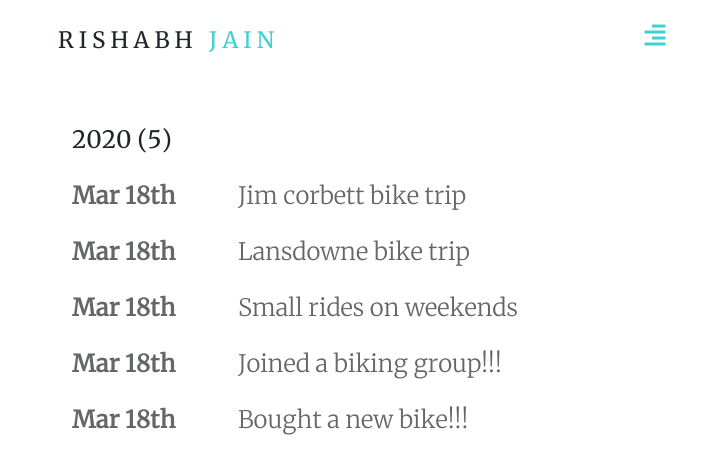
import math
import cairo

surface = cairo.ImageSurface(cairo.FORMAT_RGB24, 719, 472)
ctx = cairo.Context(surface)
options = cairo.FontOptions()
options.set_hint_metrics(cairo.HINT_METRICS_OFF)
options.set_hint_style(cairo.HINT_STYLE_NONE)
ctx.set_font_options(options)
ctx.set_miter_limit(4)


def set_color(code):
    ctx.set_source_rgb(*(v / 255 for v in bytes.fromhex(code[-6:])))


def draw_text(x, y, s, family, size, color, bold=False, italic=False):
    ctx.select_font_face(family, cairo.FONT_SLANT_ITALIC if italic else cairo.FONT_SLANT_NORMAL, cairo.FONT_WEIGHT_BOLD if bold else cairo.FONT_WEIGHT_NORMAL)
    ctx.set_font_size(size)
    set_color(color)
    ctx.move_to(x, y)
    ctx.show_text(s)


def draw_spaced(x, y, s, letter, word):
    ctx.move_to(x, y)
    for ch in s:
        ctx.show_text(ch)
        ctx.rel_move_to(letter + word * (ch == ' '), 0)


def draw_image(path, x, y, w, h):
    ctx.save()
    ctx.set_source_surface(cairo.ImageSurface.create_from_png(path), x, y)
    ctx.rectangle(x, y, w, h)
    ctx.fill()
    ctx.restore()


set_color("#ffffff")
ctx.paint()
ctx.select_font_face("Merriweather")
ctx.set_font_size(22.5)
set_color("#212529")
draw_spaced(58, 48, "RISHABH", 5, 0)
set_color("#3fd0d4")
draw_spaced(209, 48, "JAIN", 5, 0)
draw_image("assets/img1.png", 644, 24, 22, 22)
draw_text(72, 148, "2020 (5)", "Merriweather", 24, "#212529")
draw_text(72, 204, "Mar 18th", "Merriweather", 24, "#646669", bold=True)
draw_text(238, 204, "Jim corbett bike trip", "Merriweather Light", 24, "#646669")
draw_text(72, 260, "Mar 18th", "Merriweather", 24, "#646669", bold=True)
draw_text(238, 260, "Lansdowne bike trip", "Merriweather Light", 24, "#646669")
draw_text(72, 316, "Mar 18th", "Merriweather", 24, "#646669", bold=True)
draw_text(238, 316, "Small rides on weekends", "Merriweather Light", 24, "#646669")
draw_text(72, 372, "Mar 18th", "Merriweather", 24, "#646669", bold=True)
draw_text(238, 372, "Joined a biking group!!!", "Merriweather Light", 24, "#646669")
draw_text(72, 428, "Mar 18th", "Merriweather", 24, "#646669", bold=True)
draw_text(238, 428, "Bought a new bike!!!", "Merriweather Light", 24, "#646669")
surface.write_to_png("output.png")
